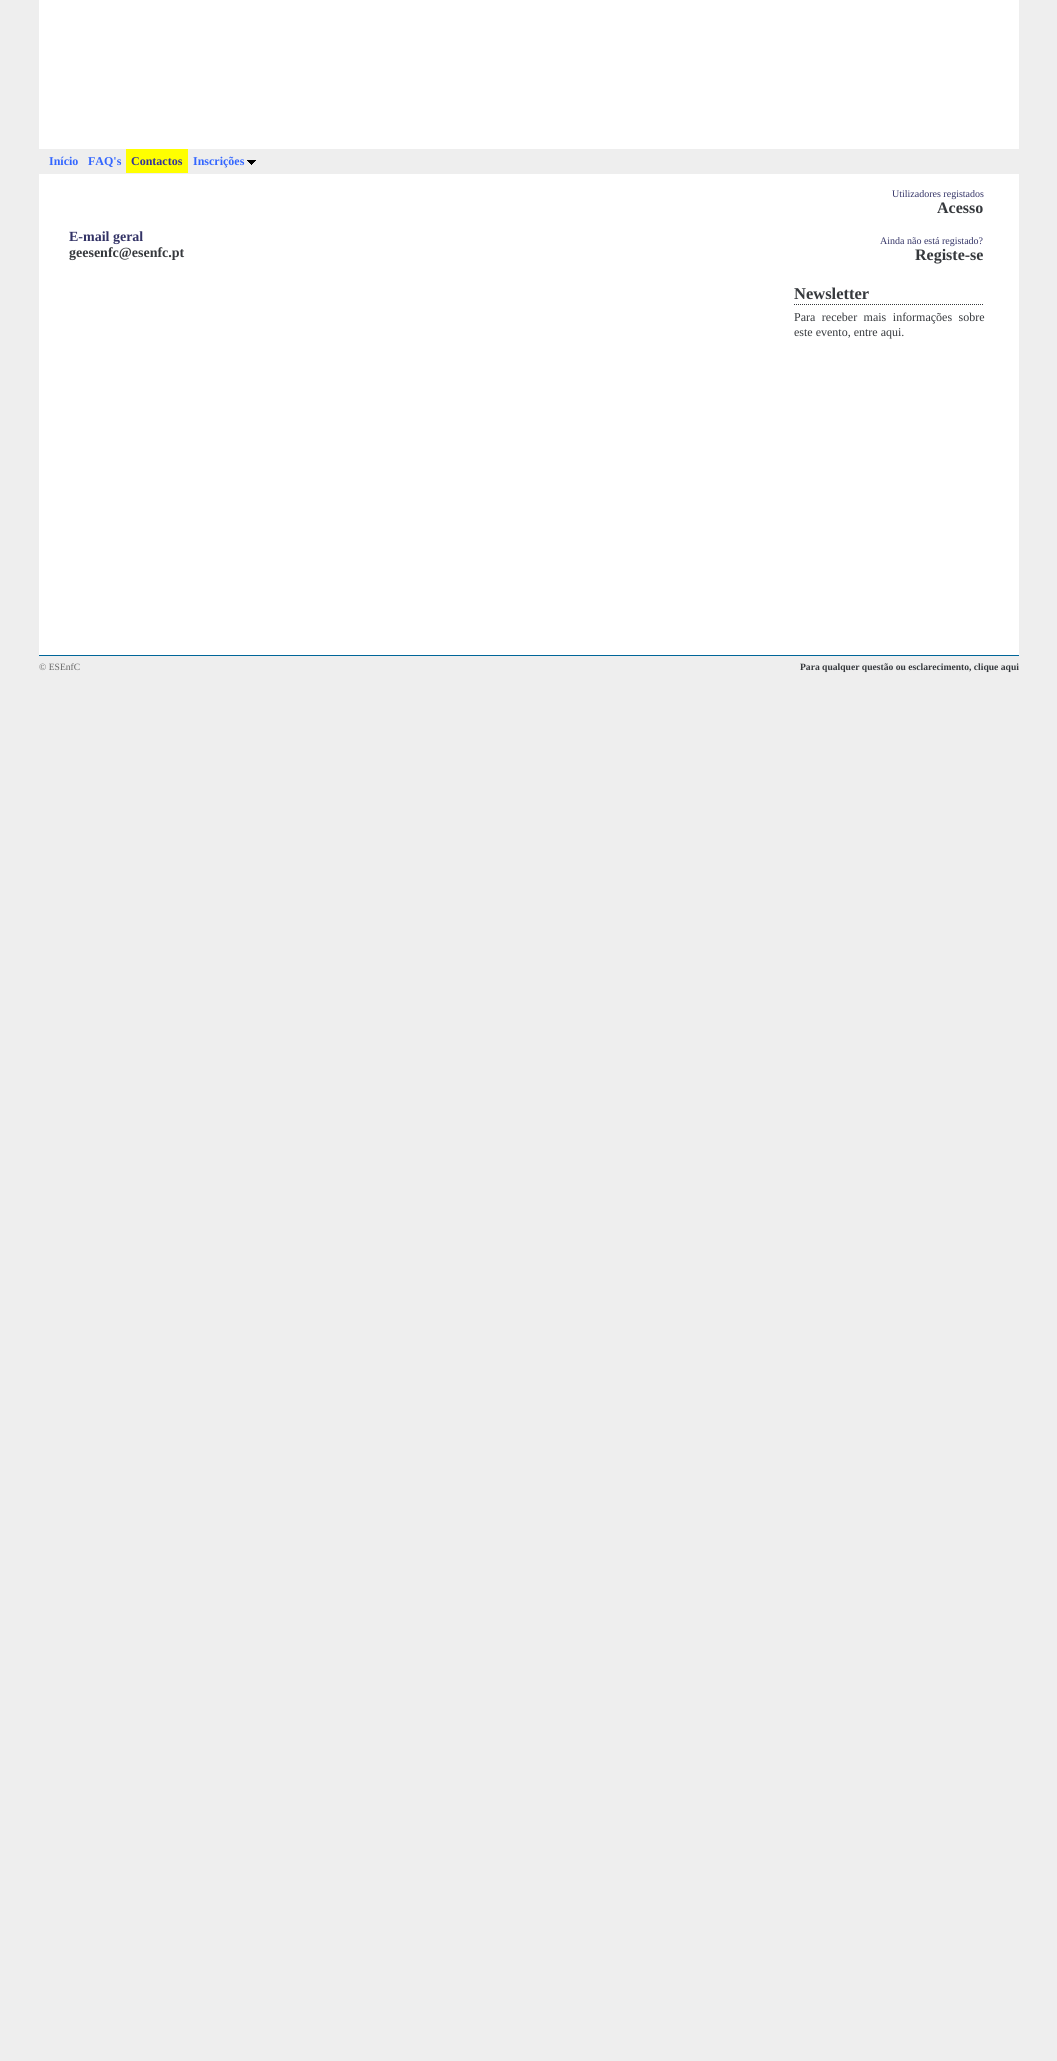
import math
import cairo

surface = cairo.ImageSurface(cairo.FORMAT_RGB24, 1057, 2061)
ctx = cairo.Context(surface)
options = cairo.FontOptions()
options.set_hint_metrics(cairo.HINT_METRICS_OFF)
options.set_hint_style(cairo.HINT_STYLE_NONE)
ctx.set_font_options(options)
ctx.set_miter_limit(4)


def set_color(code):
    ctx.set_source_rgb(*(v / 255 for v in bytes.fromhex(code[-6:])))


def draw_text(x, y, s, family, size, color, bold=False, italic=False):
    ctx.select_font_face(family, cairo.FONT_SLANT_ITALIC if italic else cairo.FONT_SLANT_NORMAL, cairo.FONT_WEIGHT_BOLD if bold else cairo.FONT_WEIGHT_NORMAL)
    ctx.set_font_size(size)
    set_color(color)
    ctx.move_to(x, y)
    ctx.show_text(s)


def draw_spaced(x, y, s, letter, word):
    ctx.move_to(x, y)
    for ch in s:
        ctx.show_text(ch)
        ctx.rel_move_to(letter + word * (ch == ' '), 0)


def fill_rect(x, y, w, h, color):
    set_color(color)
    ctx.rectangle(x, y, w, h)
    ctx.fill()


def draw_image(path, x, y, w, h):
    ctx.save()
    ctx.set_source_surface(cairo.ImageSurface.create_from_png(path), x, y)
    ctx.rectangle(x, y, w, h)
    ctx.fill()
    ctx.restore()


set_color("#eeeeee")
ctx.paint()
fill_rect(39, 0, 980, 149, "#ffffff")
draw_text(49, 165, "Início", "Liberation Serif", 12, "#3366ff", bold=True)
draw_text(88, 165, "FAQ's", "Liberation Serif", 12, "#3366ff", bold=True)
fill_rect(126, 149, 62, 24, "#ffff00")
draw_text(131, 165, "Contactos", "Liberation Serif", 12, "#333399", bold=True)
draw_text(193, 165, "Inscrições", "Liberation Serif", 12, "#3366ff", bold=True)
draw_image("assets/img1.png", 247, 160, 9, 5)
fill_rect(39, 174, 980, 481, "#ffffff")
draw_text(69, 241, "E-mail geral", "Liberation Serif", 14, "#333366", bold=True)
draw_text(69, 257, "geesenfc@esenfc.pt", "Liberation Serif", 14, "#36393d", bold=True)
draw_text(892, 197, "Utilizadores registados", "Liberation Serif", 10, "#333366")
draw_text(937, 213, "Acesso", "Liberation Serif", 16, "#36393d", bold=True)
draw_text(880, 244, "Ainda não está registado?", "Liberation Serif", 10, "#333366")
draw_text(915, 260, "Registe-se", "Liberation Serif", 16, "#36393d", bold=True)
ctx.new_path()
ctx.move_to(794, 304.5)
ctx.line_to(984, 304.5)
ctx.set_line_width(1)
ctx.set_dash([1, 1])
ctx.stroke()
draw_text(794, 299, "Newsletter", "Liberation Serif", 16.5, "#36393d", bold=True)
ctx.select_font_face("Liberation Serif")
ctx.set_font_size(12)
draw_spaced(794, 321, "Para receber mais informações sobre", 0, 3.5)
draw_text(794, 336, "este evento, entre aqui.", "Liberation Serif", 12, "#36393d")
fill_rect(39, 655, 980, 1, "#006699")
draw_text(39, 670, "© ESEnfC", "Liberation Serif", 9.6, "#666666")
draw_text(800, 670, "Para qualquer questão ou esclarecimento, clique aqui", "Liberation Serif", 9.6, "#36393d", bold=True)
surface.write_to_png("output.png")
